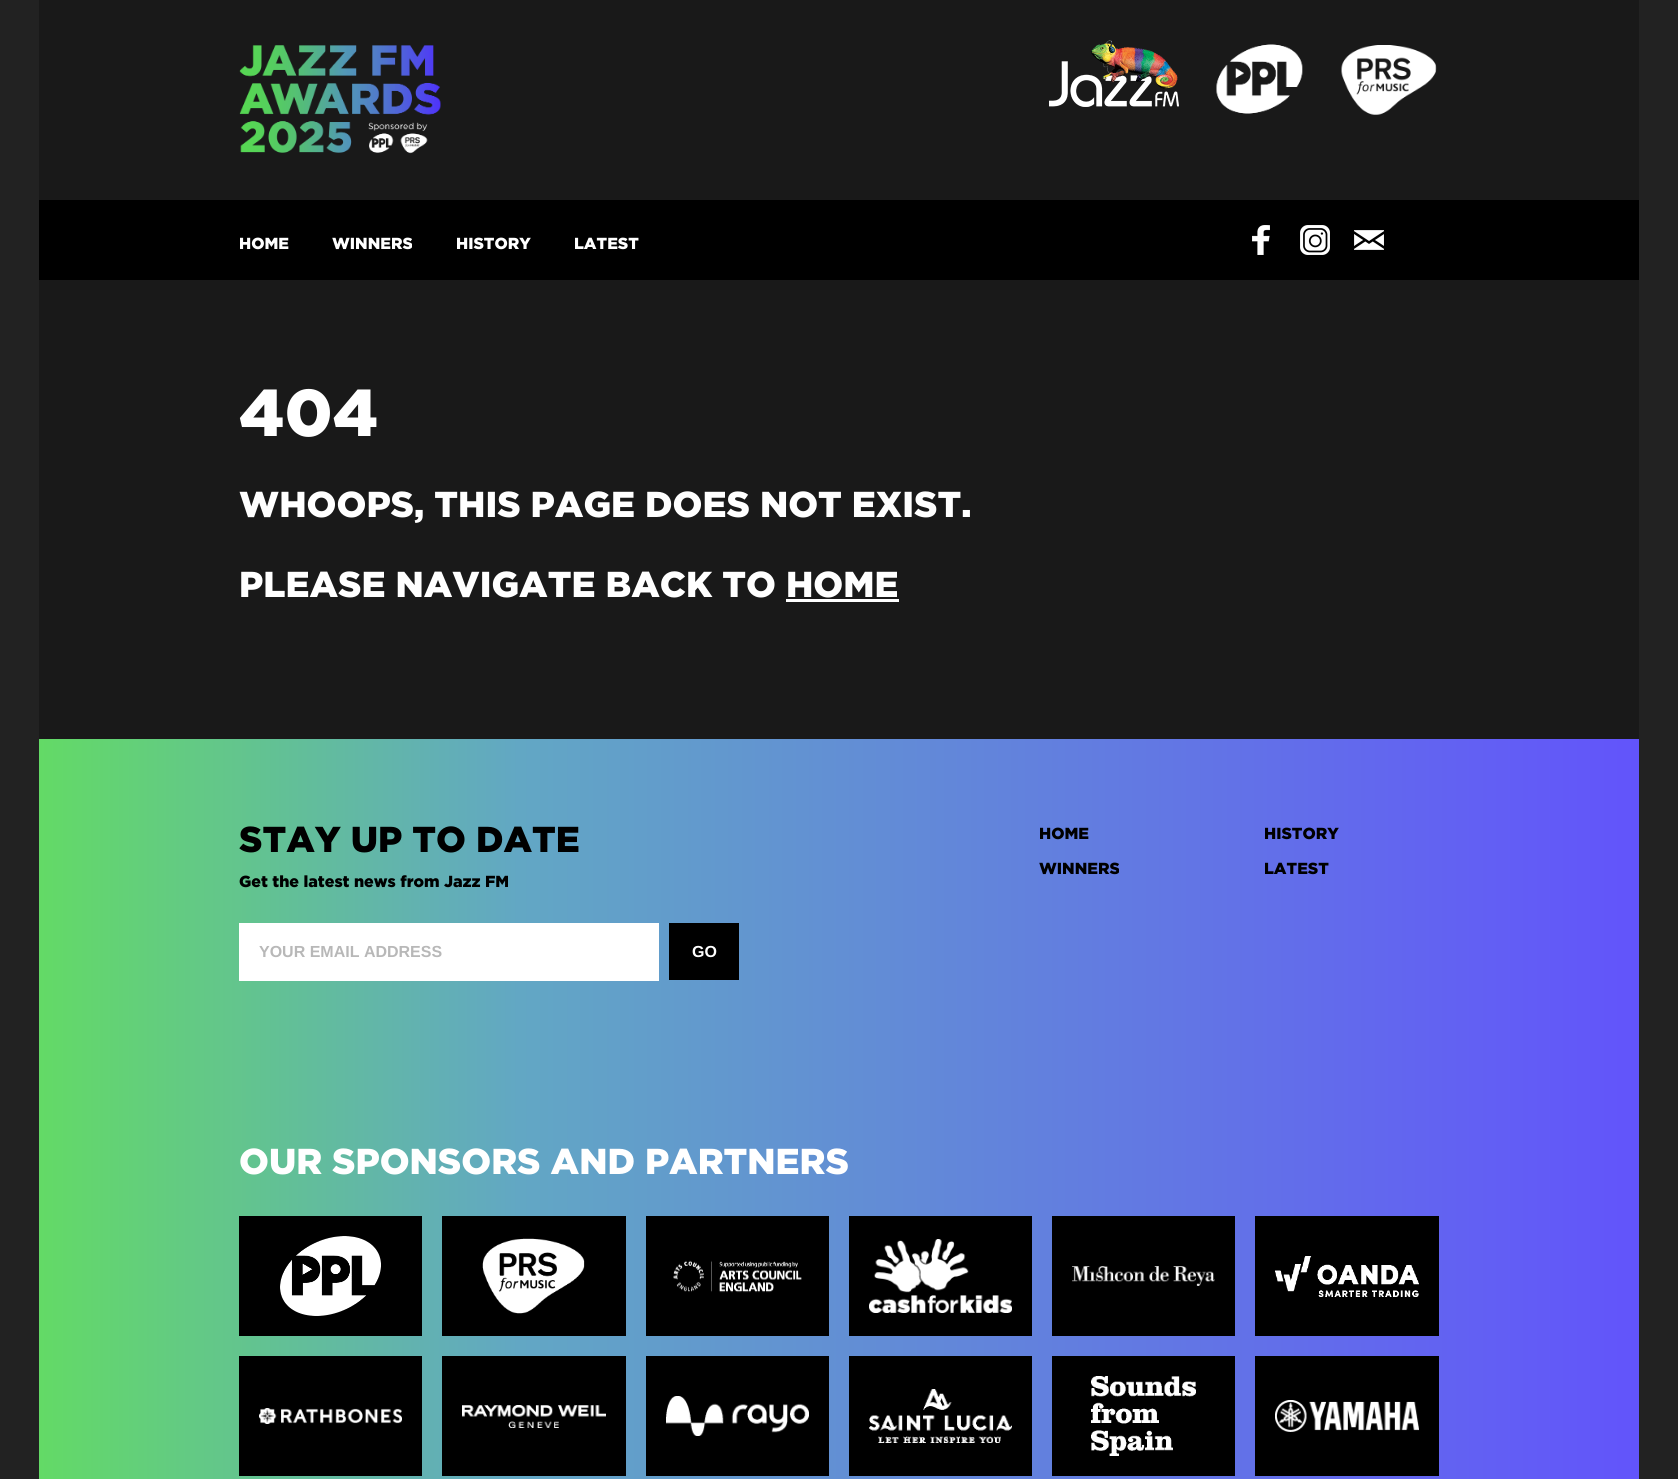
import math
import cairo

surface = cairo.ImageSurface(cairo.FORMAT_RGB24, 1678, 1479)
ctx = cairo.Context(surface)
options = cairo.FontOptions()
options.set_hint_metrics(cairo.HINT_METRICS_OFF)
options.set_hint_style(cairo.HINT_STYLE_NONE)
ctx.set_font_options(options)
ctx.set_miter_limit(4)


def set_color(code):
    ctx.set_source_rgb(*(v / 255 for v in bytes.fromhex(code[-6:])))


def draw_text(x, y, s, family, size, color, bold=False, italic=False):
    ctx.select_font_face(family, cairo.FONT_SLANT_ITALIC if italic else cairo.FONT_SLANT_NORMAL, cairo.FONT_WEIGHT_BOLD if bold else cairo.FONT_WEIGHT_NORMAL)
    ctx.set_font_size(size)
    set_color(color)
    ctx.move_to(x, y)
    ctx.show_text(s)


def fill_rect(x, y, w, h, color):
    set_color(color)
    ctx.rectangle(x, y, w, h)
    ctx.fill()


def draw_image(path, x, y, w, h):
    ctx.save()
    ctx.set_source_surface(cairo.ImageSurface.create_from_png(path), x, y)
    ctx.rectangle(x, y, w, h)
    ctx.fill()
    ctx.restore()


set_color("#222222")
ctx.paint()
fill_rect(39, 0, 1600, 200, "#191919")
draw_image("assets/img1.png", 239, 45, 202, 109)
draw_image("assets/img2.png", 1049, 40, 130, 67)
draw_image("assets/img3.png", 1216, 44, 87, 70)
draw_image("assets/img4.png", 1341, 45, 96, 70)
fill_rect(39, 200, 1600, 80, "#000000")
draw_text(239, 249, "HOME", "Gotham Black", 16, "#ffffff")
draw_text(332, 249, "WINNERS", "Gotham Black", 16, "#ffffff")
draw_text(456, 249, "HISTORY", "Gotham Black", 16, "#ffffff")
draw_text(574, 249, "LATEST", "Gotham Black", 16, "#ffffff")
draw_image("assets/img5.png", 1252, 225, 18, 30)
draw_image("assets/img6.png", 1300, 225, 30, 30)
draw_image("assets/img7.png", 1354, 230, 30, 20)
fill_rect(39, 280, 1600, 459, "#191919")
draw_text(239, 436, "404", "Gotham Black", 66, "#ffffff")
draw_text(239, 517, "WHOOPS, THIS PAGE DOES NOT EXIST.", "Gotham Black", 36, "#ffffff")
draw_text(239, 597, "PLEASE NAVIGATE BACK TO HOME", "Gotham Black", 36, "#ffffff")
fill_rect(786, 599, 113, 3, "#ffffff")
gradient = cairo.LinearGradient(39, 900, 1639, 900)
gradient.add_color_stop_rgba(0, 0.388, 0.855, 0.4, 1)
gradient.add_color_stop_rgba(0.3, 0.384, 0.655, 0.769, 1)
gradient.add_color_stop_rgba(1, 0.384, 0.329, 0.984, 1)
gradient.add_color_stop_rgba(1, 0.388, 0.855, 0.4, 1)
gradient.add_color_stop_rgba(1, 0.384, 0.655, 0.769, 1)
gradient.add_color_stop_rgba(1, 0.384, 0.329, 0.984, 1)
ctx.set_source(gradient)
ctx.rectangle(39, 739, 1600, 322)
ctx.fill()
draw_text(239, 852, "STAY UP TO DATE", "Gotham Black", 36, "#000000")
draw_text(239, 887, "Get the latest news from Jazz FM", "Gotham Black", 16, "#000000")
fill_rect(239, 923, 420, 58, "#ffffff")
draw_text(259, 957, "YOUR EMAIL ADDRESS", "Liberation Sans", 16, "#b8b8b8", bold=True)
fill_rect(669, 923, 70, 57, "#000000")
draw_text(692, 957, "GO", "Liberation Sans", 16, "#ffffff", bold=True)
draw_text(1039, 839, "HOME", "Gotham Black", 16, "#000000")
draw_text(1264, 839, "HISTORY", "Gotham Black", 16, "#000000")
draw_text(1039, 874, "WINNERS", "Gotham Black", 16, "#000000")
draw_text(1264, 874, "LATEST", "Gotham Black", 16, "#000000")
gradient = cairo.LinearGradient(39, 1389, 1639, 1389)
gradient.add_color_stop_rgba(0, 0.388, 0.855, 0.4, 1)
gradient.add_color_stop_rgba(0.3, 0.384, 0.655, 0.769, 1)
gradient.add_color_stop_rgba(1, 0.384, 0.329, 0.984, 1)
gradient.add_color_stop_rgba(1, 0.388, 0.855, 0.4, 1)
gradient.add_color_stop_rgba(1, 0.384, 0.655, 0.769, 1)
gradient.add_color_stop_rgba(1, 0.384, 0.329, 0.984, 1)
ctx.set_source(gradient)
ctx.rectangle(39, 1061, 1600, 418)
ctx.fill()
draw_text(239, 1174, "OUR SPONSORS AND PARTNERS", "Gotham Black", 36, "#ffffff")
fill_rect(239, 1216, 183, 120, "#000000")
draw_image("assets/img8.png", 280, 1236, 101, 80)
fill_rect(442, 1216, 184, 120, "#000000")
draw_image("assets/img9.png", 482, 1238, 103, 76)
fill_rect(646, 1216, 183, 120, "#000000")
draw_image("assets/img10.png", 673, 1260, 129, 33)
fill_rect(849, 1216, 183, 120, "#000000")
draw_image("assets/img11.png", 869, 1239, 143, 74)
fill_rect(1052, 1216, 183, 120, "#000000")
draw_image("assets/img12.png", 1072, 1266, 143, 20)
fill_rect(1255, 1216, 184, 120, "#000000")
draw_image("assets/img13.png", 1275, 1256, 144, 41)
fill_rect(239, 1356, 183, 120, "#000000")
draw_image("assets/img14.png", 259, 1408, 143, 16)
fill_rect(442, 1356, 184, 120, "#000000")
draw_image("assets/img15.png", 462, 1405, 144, 23)
fill_rect(646, 1356, 183, 120, "#000000")
draw_image("assets/img16.png", 666, 1396, 143, 40)
fill_rect(849, 1356, 183, 120, "#000000")
draw_image("assets/img17.png", 869, 1389, 143, 54)
fill_rect(1052, 1356, 183, 120, "#000000")
draw_image("assets/img18.png", 1091, 1376, 105, 80)
fill_rect(1255, 1356, 184, 120, "#000000")
draw_image("assets/img19.png", 1275, 1400, 144, 32)
surface.write_to_png("output.png")
